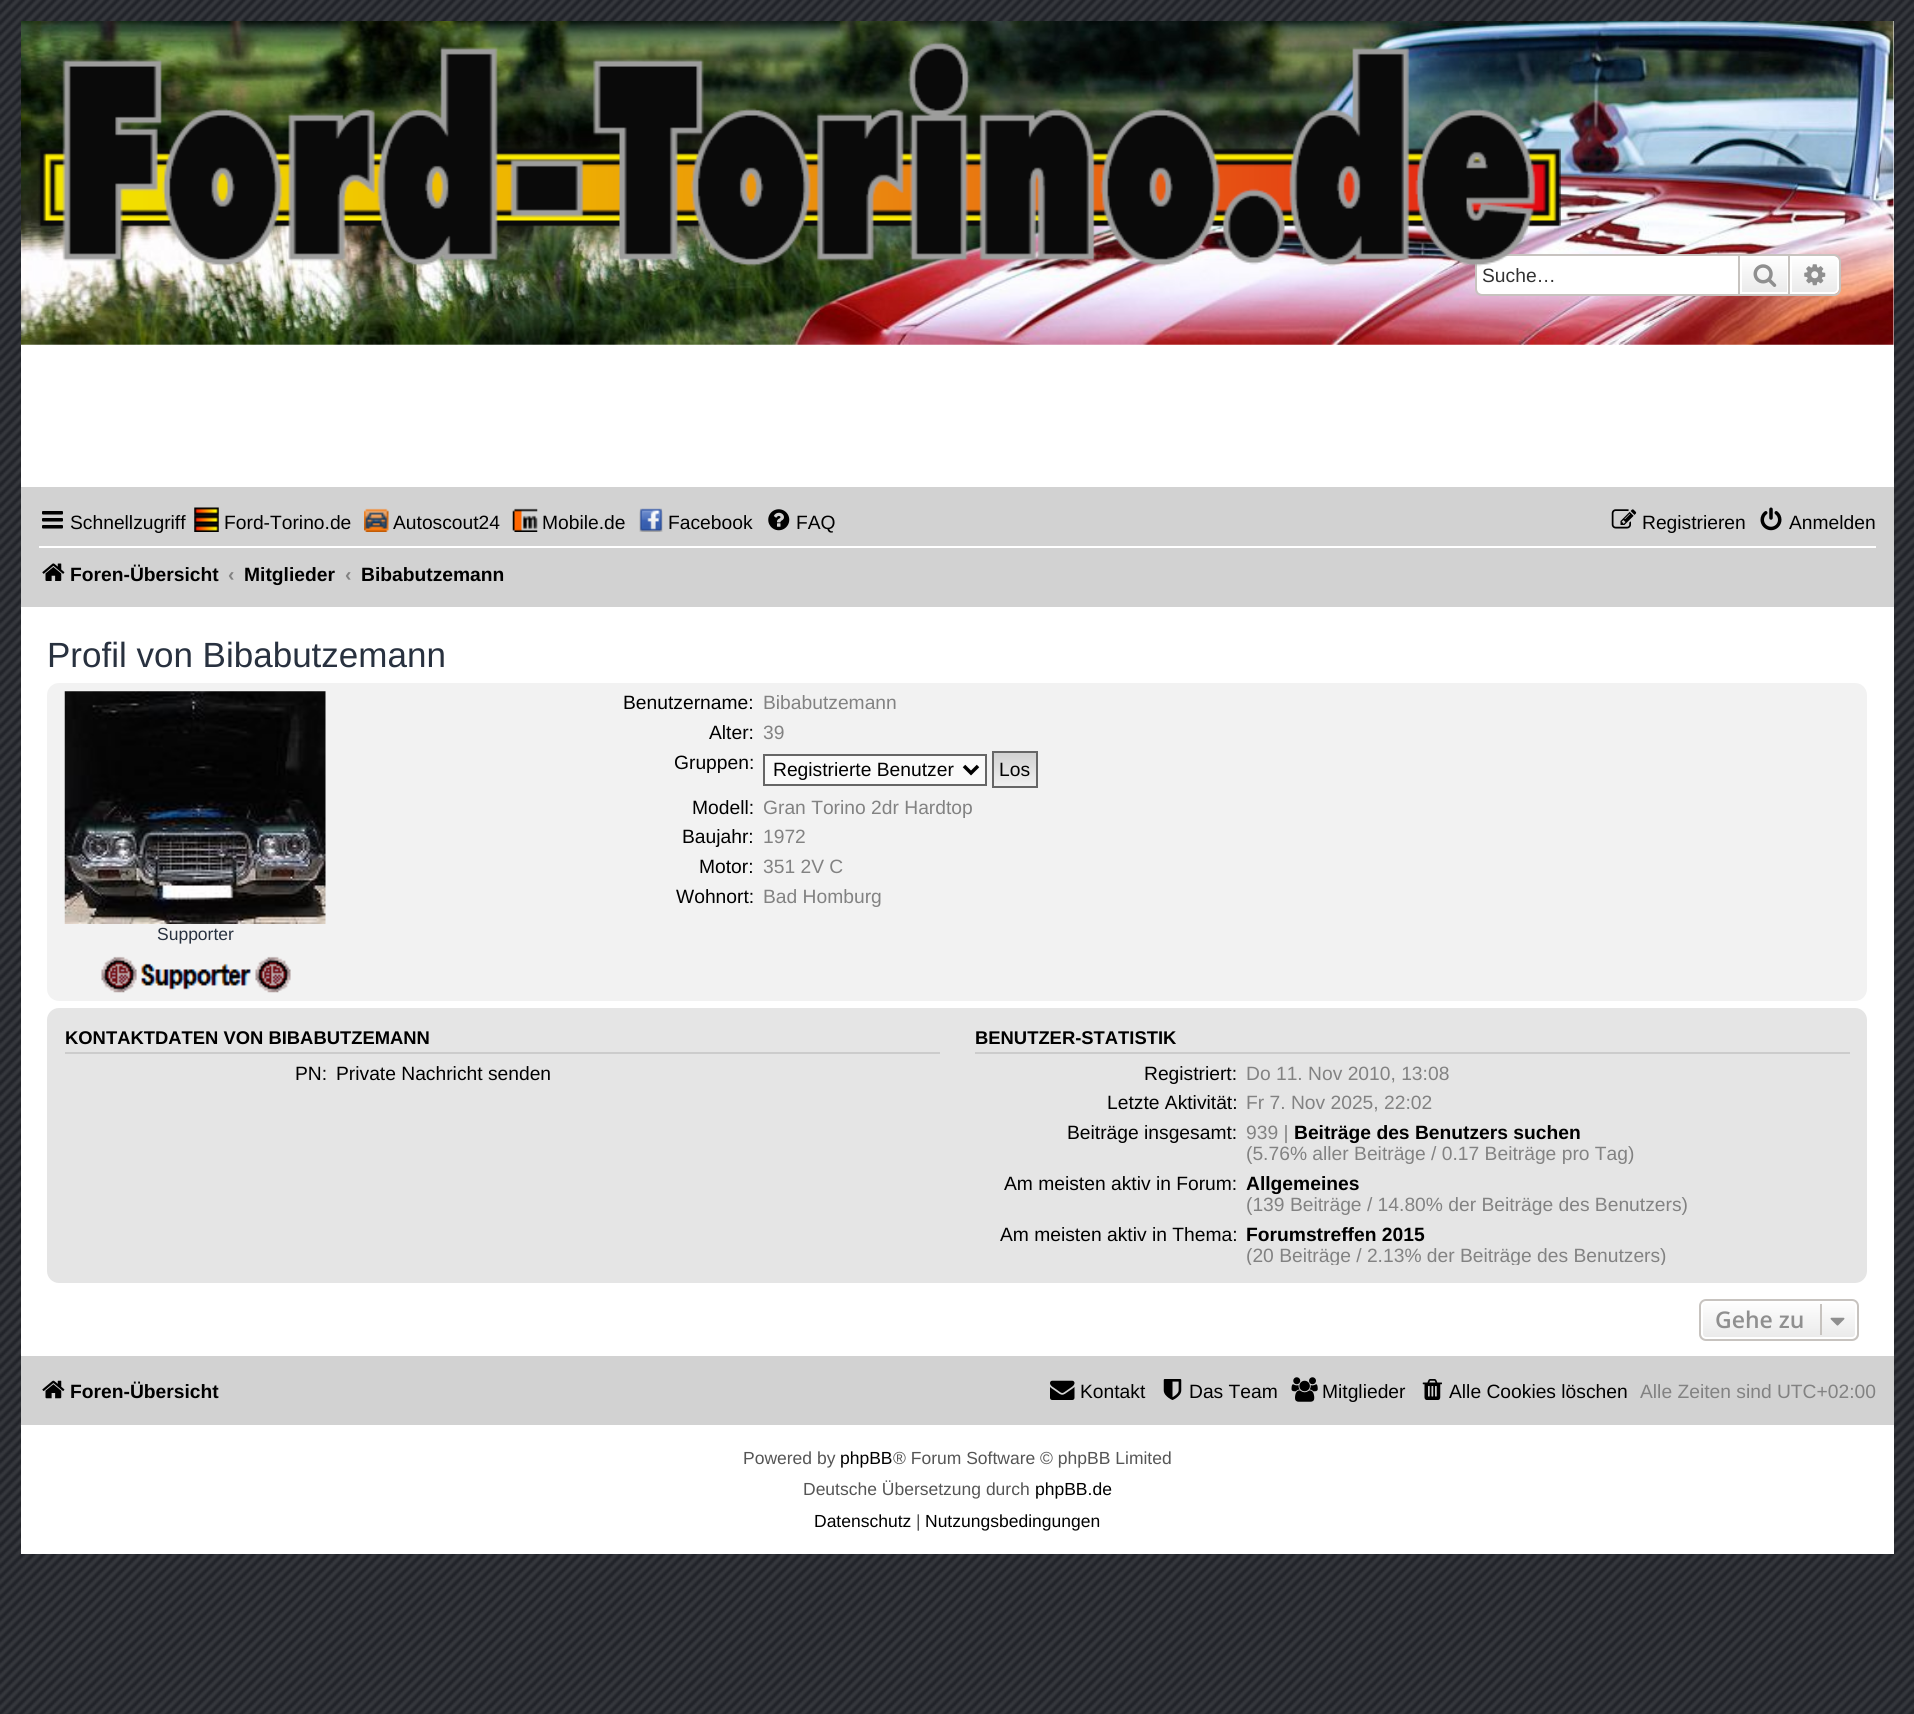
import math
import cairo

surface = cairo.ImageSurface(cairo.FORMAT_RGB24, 1914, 1714)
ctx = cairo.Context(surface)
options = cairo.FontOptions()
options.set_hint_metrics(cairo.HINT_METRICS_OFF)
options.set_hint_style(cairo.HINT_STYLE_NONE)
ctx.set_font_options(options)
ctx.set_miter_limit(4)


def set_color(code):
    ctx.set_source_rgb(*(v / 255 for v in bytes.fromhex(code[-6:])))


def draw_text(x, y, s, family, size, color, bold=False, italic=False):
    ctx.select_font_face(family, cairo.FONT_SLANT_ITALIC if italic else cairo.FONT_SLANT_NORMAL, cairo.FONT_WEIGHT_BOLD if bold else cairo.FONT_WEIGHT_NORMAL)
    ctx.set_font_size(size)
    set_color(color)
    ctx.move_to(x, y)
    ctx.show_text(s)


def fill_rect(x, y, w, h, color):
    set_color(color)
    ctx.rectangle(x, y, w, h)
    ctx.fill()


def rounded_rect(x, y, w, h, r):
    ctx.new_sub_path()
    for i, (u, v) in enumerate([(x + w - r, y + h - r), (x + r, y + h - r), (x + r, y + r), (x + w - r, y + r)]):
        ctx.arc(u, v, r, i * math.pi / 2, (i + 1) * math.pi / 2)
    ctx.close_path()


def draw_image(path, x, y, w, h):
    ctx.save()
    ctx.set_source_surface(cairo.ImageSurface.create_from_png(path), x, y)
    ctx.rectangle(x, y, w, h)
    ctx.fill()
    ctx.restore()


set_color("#ffffff")
ctx.paint()
draw_image("assets/img1.png", 0, 1575, 1914, 139)
draw_image("assets/img2.png", 0, 0, 1914, 1575)
fill_rect(21, 21, 1873, 1533, "#ffffff")
draw_image("assets/img3.png", 21, 21, 1873, 324)
ctx.new_path()
ctx.move_to(1482, 256)
ctx.line_to(1738, 256)
ctx.line_to(1738, 294)
ctx.line_to(1482, 294)
ctx.curve_to(1479, 294, 1477, 292, 1477, 289)
ctx.line_to(1477, 261)
ctx.curve_to(1477, 258, 1479, 256, 1482, 256)
ctx.close_path()
ctx.fill()
set_color("#c7c3bf")
ctx.set_fill_rule(cairo.FILL_RULE_EVEN_ODD)
ctx.new_path()
ctx.move_to(1482, 254)
ctx.line_to(1738, 254)
ctx.line_to(1738, 296)
ctx.line_to(1482, 296)
ctx.curve_to(1478, 296, 1475, 293, 1475, 289)
ctx.line_to(1475, 261)
ctx.curve_to(1475, 257, 1478, 254, 1482, 254)
ctx.close_path()
ctx.move_to(1482, 256)
ctx.line_to(1738, 256)
ctx.line_to(1738, 294)
ctx.line_to(1482, 294)
ctx.curve_to(1479, 294, 1477, 292, 1477, 289)
ctx.line_to(1477, 261)
ctx.curve_to(1477, 258, 1479, 256, 1482, 256)
ctx.close_path()
ctx.fill()
draw_image("assets/img4.png", 38, 41, 1523, 226)
draw_text(1482, 282, "Suche…", "Liberation Sans", 19.25, "#333333")
gradient = cairo.LinearGradient(1764, 256, 1764, 294)
gradient.add_color_stop_rgba(0, 1, 1, 1, 1)
gradient.add_color_stop_rgba(1, 0.914, 0.914, 0.914, 1)
ctx.set_source(gradient)
ctx.rectangle(1742, 258, 45, 34)
ctx.fill()
ctx.rectangle(1741, 257, 47, 36)
set_color("#ffffff")
ctx.stroke()
ctx.rectangle(1739, 255, 50, 40)
set_color("#c7c3bf")
ctx.stroke()
draw_image("assets/img5.png", 1753, 264, 24, 23)
gradient = cairo.LinearGradient(1815, 256, 1815, 294)
gradient.add_color_stop_rgba(0, 1, 1, 1, 1)
gradient.add_color_stop_rgba(1, 0.914, 0.914, 0.914, 1)
ctx.set_source(gradient)
ctx.new_path()
ctx.move_to(1791, 257)
ctx.line_to(1834, 257)
ctx.curve_to(1836, 257, 1838, 259, 1838, 261)
ctx.line_to(1838, 289)
ctx.curve_to(1838, 291, 1836, 293, 1834, 293)
ctx.line_to(1791, 293)
ctx.close_path()
ctx.fill_preserve()
set_color("#ffffff")
ctx.stroke()
set_color("#c7c3bf")
ctx.new_path()
ctx.move_to(1790, 254)
ctx.line_to(1834, 254)
ctx.curve_to(1838, 254, 1841, 257, 1841, 261)
ctx.line_to(1841, 289)
ctx.curve_to(1841, 293, 1838, 296, 1834, 296)
ctx.line_to(1790, 296)
ctx.close_path()
ctx.move_to(1790, 256)
ctx.line_to(1834, 256)
ctx.curve_to(1837, 256, 1839, 258, 1839, 261)
ctx.line_to(1839, 289)
ctx.curve_to(1839, 292, 1837, 294, 1834, 294)
ctx.line_to(1790, 294)
ctx.close_path()
ctx.fill()
draw_image("assets/img6.png", 1804, 264, 22, 22)
fill_rect(21, 487, 1873, 120, "#d2d2d2")
draw_image("assets/img7.png", 42, 511, 21, 18)
draw_text(70, 529, "Schnellzugriff", "Liberation Sans", 19.25, "#000000")
draw_image("assets/img8.png", 194, 507, 25, 25)
draw_text(224, 529, "Ford-Torino.de", "Liberation Sans", 19.25, "#000000")
draw_image("assets/img9.png", 364, 508, 25, 24)
draw_text(393, 529, "Autoscout24", "Liberation Sans", 19.25, "#000000")
draw_image("assets/img10.png", 512, 508, 26, 24)
draw_text(542, 529, "Mobile.de", "Liberation Sans", 19.25, "#000000")
draw_image("assets/img11.png", 639, 508, 24, 24)
draw_text(668, 529, "Facebook", "Liberation Sans", 19.25, "#000000")
draw_image("assets/img12.png", 768, 509, 22, 22)
draw_text(796, 529, "FAQ", "Liberation Sans", 19.25, "#000000")
draw_image("assets/img13.png", 1611, 509, 26, 20)
draw_text(1642, 529, "Registrieren", "Liberation Sans", 19.25, "#000000")
draw_image("assets/img14.png", 1760, 507, 22, 24)
draw_text(1789, 529, "Anmelden", "Liberation Sans", 19.25, "#000000")
fill_rect(39, 546, 1837, 2, "#ffffff")
draw_image("assets/img15.png", 42, 563, 23, 18)
draw_text(70, 581, "Foren-Übersicht", "Liberation Sans", 19.25, "#000000", bold=True)
draw_text(228, 581, "‹", "Liberation Sans", 19.25, "#828282", bold=True)
draw_text(244, 581, "Mitglieder", "Liberation Sans", 19.25, "#000000", bold=True)
draw_text(345, 581, "‹", "Liberation Sans", 19.25, "#828282", bold=True)
draw_text(361, 581, "Bibabutzemann", "Liberation Sans", 19.25, "#000000", bold=True)
draw_text(47, 667, "Profil von Bibabutzemann", "Liberation Sans", 35, "#28313f")
set_color("#f2f2f2")
rounded_rect(47, 683, 1820, 318, 12)
ctx.fill()
draw_text(623, 709, "Benutzername:", "Liberation Sans", 19.25, "#000000")
draw_text(763, 709, "Bibabutzemann", "Liberation Sans", 19.25, "#828282")
draw_text(709, 739, "Alter:", "Liberation Sans", 19.25, "#000000")
draw_text(763, 739, "39", "Liberation Sans", 19.25, "#828282")
draw_text(674, 769, "Gruppen:", "Liberation Sans", 19.25, "#000000")
set_color("#fafafa")
ctx.rectangle(764, 755, 222, 30)
ctx.fill_preserve()
set_color("#666666")
ctx.stroke()
ctx.new_path()
ctx.move_to(964, 766)
ctx.line_to(971, 773)
ctx.line_to(978, 766)
set_color("#000000")
ctx.set_line_width(3.5)
ctx.stroke()
draw_text(773, 776, "Registrierte Benutzer", "Liberation Sans", 19.25, "#000000")
gradient = cairo.LinearGradient(1015, 753, 1015, 786)
gradient.add_color_stop_rgba(0, 0.824, 0.824, 0.824, 1)
gradient.add_color_stop_rgba(1, 0.937, 0.937, 0.937, 1)
ctx.set_source(gradient)
ctx.rectangle(994, 753, 42, 33)
ctx.fill()
ctx.rectangle(993, 752, 44, 35)
set_color("#666666")
ctx.set_line_width(2)
ctx.stroke()
draw_text(999, 776, "Los", "Liberation Sans", 19.25, "#000000")
draw_text(692, 814, "Modell:", "Liberation Sans", 19.25, "#000000")
draw_text(763, 814, "Gran Torino 2dr Hardtop", "Liberation Sans", 19.25, "#828282")
draw_text(682, 843, "Baujahr:", "Liberation Sans", 19.25, "#000000")
draw_text(763, 843, "1972", "Liberation Sans", 19.25, "#828282")
draw_text(699, 873, "Motor:", "Liberation Sans", 19.25, "#000000")
draw_text(763, 873, "351 2V C", "Liberation Sans", 19.25, "#828282")
draw_text(676, 903, "Wohnort:", "Liberation Sans", 19.25, "#000000")
draw_text(763, 903, "Bad Homburg", "Liberation Sans", 19.25, "#828282")
draw_image("assets/img16.png", 64, 691, 262, 233)
draw_text(157, 940, "Supporter", "Liberation Sans", 17.5, "#28313f")
draw_image("assets/img17.png", 101, 956, 190, 37)
set_color("#e5e5e5")
rounded_rect(47, 1008, 1820, 275, 12)
ctx.fill()
fill_rect(65, 1052, 875, 2, "#cccccc")
draw_text(65, 1044, "KONTAKTDATEN VON BIBABUTZEMANN", "Liberation Sans", 18.4, "#000000", bold=True)
draw_text(295, 1080, "PN:", "Liberation Sans", 19.25, "#000000")
draw_text(336, 1080, "Private Nachricht senden", "Liberation Sans", 19.25, "#000000")
fill_rect(975, 1052, 875, 2, "#cccccc")
draw_text(975, 1044, "BENUTZER-STATISTIK", "Liberation Sans", 18.4, "#000000", bold=True)
draw_text(1144, 1080, "Registriert:", "Liberation Sans", 19.25, "#000000")
draw_text(1246, 1080, "Do 11. Nov 2010, 13:08", "Liberation Sans", 19.25, "#828282")
draw_text(1107, 1109, "Letzte Aktivität:", "Liberation Sans", 19.25, "#000000")
draw_text(1246, 1109, "Fr 7. Nov 2025, 22:02", "Liberation Sans", 19.25, "#828282")
draw_text(1067, 1139, "Beiträge insgesamt:", "Liberation Sans", 19.25, "#000000")
draw_text(1246, 1139, "939 |", "Liberation Sans", 19.25, "#828282")
draw_text(1294, 1139, "Beiträge des Benutzers suchen", "Liberation Sans", 19.25, "#000000", bold=True)
draw_text(1246, 1160, "(5.76% aller Beiträge / 0.17 Beiträge pro Tag)", "Liberation Sans", 19.25, "#828282")
draw_text(1004, 1190, "Am meisten aktiv in Forum:", "Liberation Sans", 19.25, "#000000")
draw_text(1246, 1190, "Allgemeines", "Liberation Sans", 19.25, "#000000", bold=True)
draw_text(1246, 1211, "(139 Beiträge / 14.80% der Beiträge des Benutzers)", "Liberation Sans", 19.25, "#828282")
draw_text(1000, 1241, "Am meisten aktiv in Thema:", "Liberation Sans", 19.25, "#000000")
draw_text(1246, 1241, "Forumstreffen 2015", "Liberation Sans", 19.25, "#000000", bold=True)
ctx.save()
ctx.set_fill_rule(cairo.FILL_RULE_WINDING)
ctx.rectangle(1237, 1223, 578, 42)
ctx.clip()
draw_text(1246, 1262, "(20 Beiträge / 2.13% der Beiträge des Benutzers)", "Liberation Sans", 19.25, "#828282")
ctx.restore()
ctx.save()
ctx.set_fill_rule(cairo.FILL_RULE_WINDING)
rounded_rect(1699, 1299, 160, 42, 7)
ctx.clip()
gradient = cairo.LinearGradient(1779, 1300, 1779, 1339)
gradient.add_color_stop_rgba(0, 1, 1, 1, 1)
gradient.add_color_stop_rgba(1, 0.914, 0.914, 0.914, 1)
ctx.set_source(gradient)
ctx.rectangle(1699, 1300, 160, 39)
ctx.fill()
ctx.restore()
rounded_rect(1702, 1301, 154, 37, 4)
set_color("#ffffff")
ctx.stroke()
rounded_rect(1700, 1300, 158, 40, 6)
set_color("#c7c3bf")
ctx.stroke()
draw_text(1715, 1328, "Gehe zu", "Open Sans SemiBold", 23, "#8f8f8f")
fill_rect(1820, 1304, 2, 31, "#c7c3bf")
draw_image("assets/img18.png", 1830, 1317, 15, 9)
fill_rect(21, 1356, 1873, 69, "#d2d2d2")
draw_image("assets/img19.png", 42, 1380, 23, 19)
draw_text(70, 1398, "Foren-Übersicht", "Liberation Sans", 19.25, "#000000", bold=True)
draw_image("assets/img20.png", 1050, 1380, 25, 20)
draw_text(1080, 1398, "Kontakt", "Liberation Sans", 19.25, "#000000")
draw_image("assets/img21.png", 1163, 1379, 19, 21)
draw_text(1189, 1398, "Das Team", "Liberation Sans", 19.25, "#000000")
draw_image("assets/img22.png", 1291, 1377, 27, 25)
draw_text(1322, 1398, "Mitglieder", "Liberation Sans", 19.25, "#000000")
draw_image("assets/img23.png", 1422, 1379, 20, 21)
draw_text(1449, 1398, "Alle Cookies löschen", "Liberation Sans", 19.25, "#000000")
draw_text(1640, 1398, "Alle Zeiten sind UTC+02:00", "Liberation Sans", 19.25, "#828282")
draw_text(743, 1464, "Powered by", "Liberation Sans", 17.5, "#555555")
draw_text(840, 1464, "phpBB", "Liberation Sans", 17.5, "#000000")
draw_text(893, 1464, "® Forum Software © phpBB Limited", "Liberation Sans", 17.5, "#555555")
draw_text(803, 1495, "Deutsche Übersetzung durch", "Liberation Sans", 17.5, "#555555")
draw_text(1035, 1495, "phpBB.de", "Liberation Sans", 17.5, "#000000")
draw_text(814, 1527, "Datenschutz", "Liberation Sans", 17.5, "#000000")
draw_text(916, 1527, "|", "Liberation Sans", 17.5, "#555555")
draw_text(925, 1527, "Nutzungsbedingungen", "Liberation Sans", 17.5, "#000000")
surface.write_to_png("output.png")
